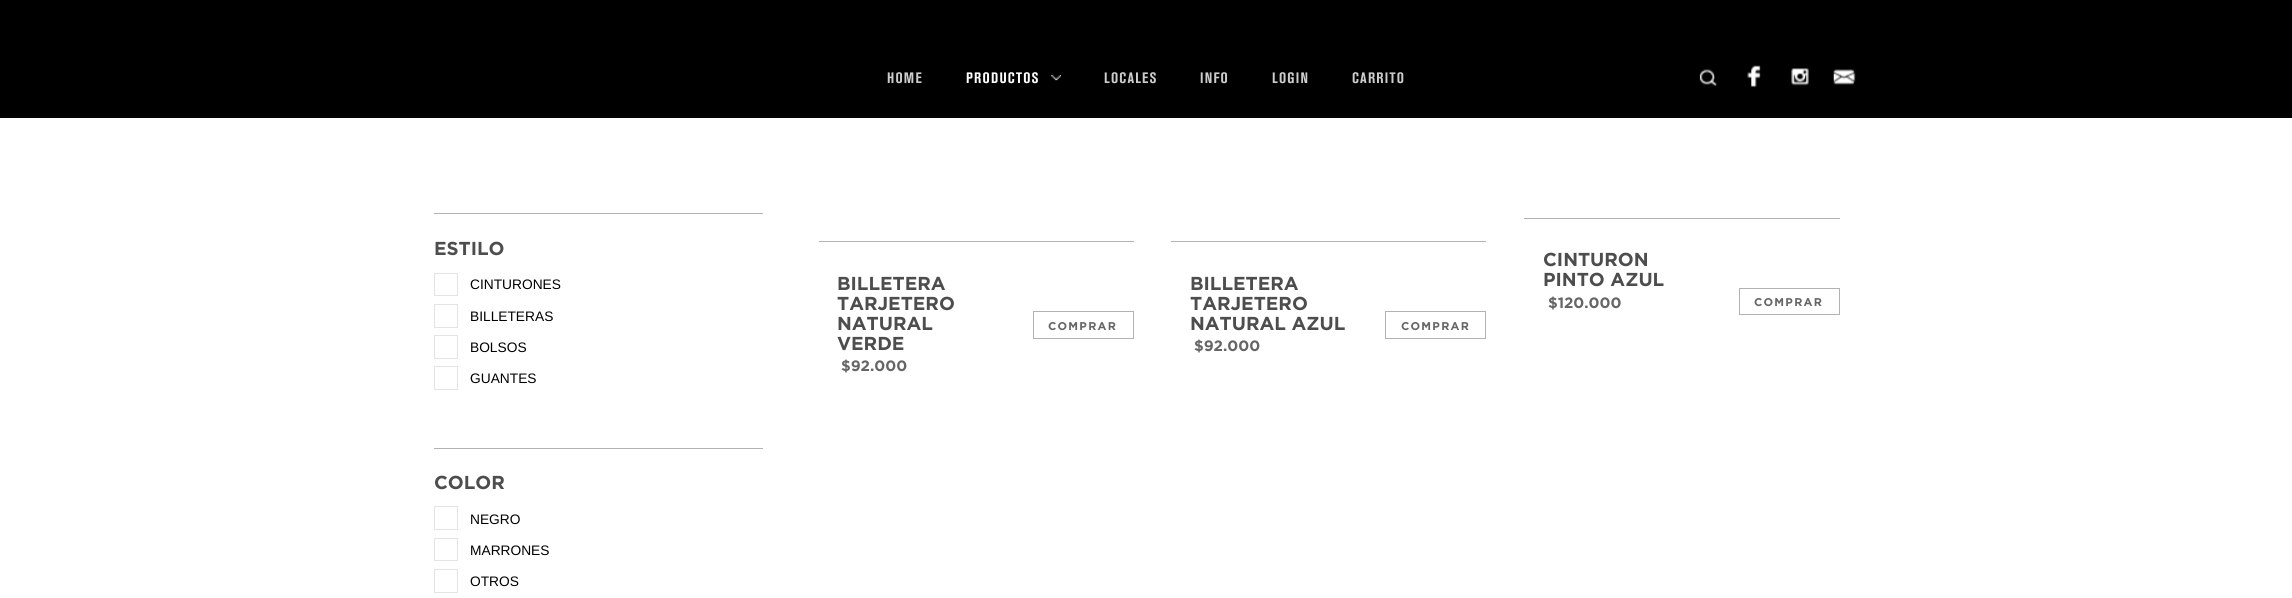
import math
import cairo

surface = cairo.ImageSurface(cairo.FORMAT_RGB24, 2292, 598)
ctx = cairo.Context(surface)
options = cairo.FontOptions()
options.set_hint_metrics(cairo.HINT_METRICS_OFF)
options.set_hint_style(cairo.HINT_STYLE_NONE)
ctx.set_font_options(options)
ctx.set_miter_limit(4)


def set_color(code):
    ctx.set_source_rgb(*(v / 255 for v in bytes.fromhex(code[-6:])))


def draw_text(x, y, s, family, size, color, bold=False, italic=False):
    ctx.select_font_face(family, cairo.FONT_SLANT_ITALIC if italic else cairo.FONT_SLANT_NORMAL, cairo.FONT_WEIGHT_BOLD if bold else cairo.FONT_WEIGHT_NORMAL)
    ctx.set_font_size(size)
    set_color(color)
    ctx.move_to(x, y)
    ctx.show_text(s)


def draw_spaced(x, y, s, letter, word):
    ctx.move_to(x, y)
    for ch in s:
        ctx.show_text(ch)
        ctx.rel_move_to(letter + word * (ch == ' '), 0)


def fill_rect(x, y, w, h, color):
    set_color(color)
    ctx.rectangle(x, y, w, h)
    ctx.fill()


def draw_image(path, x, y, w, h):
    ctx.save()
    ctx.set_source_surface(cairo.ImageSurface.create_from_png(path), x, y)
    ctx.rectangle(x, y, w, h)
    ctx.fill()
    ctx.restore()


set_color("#ffffff")
ctx.paint()
fill_rect(0, 0, 2292, 118, "#000000")
ctx.select_font_face("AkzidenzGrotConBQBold", cairo.FONT_SLANT_NORMAL, cairo.FONT_WEIGHT_BOLD)
ctx.set_font_size(15)
set_color("#cccccc")
draw_spaced(887, 83, "HOME", 1.25, 0)
set_color("#ffffff")
draw_spaced(966, 83, "PRODUCTOS", 1.25, 0)
draw_image("assets/img1.png", 1051, 75, 10, 6)
set_color("#cccccc")
draw_spaced(1104, 83, "LOCALES", 1.25, 0)
draw_spaced(1200, 83, "INFO", 1.25, 0)
draw_spaced(1272, 83, "LOGIN", 1.25, 0)
draw_spaced(1352, 83, "CARRITO", 1.25, 0)
draw_image("assets/img2.png", 1699, 69, 18, 18)
draw_image("assets/img3.png", 1747, 65, 14, 22)
draw_image("assets/img4.png", 1791, 68, 18, 18)
draw_image("assets/img5.png", 1833, 69, 23, 16)
fill_rect(434, 213, 329, 1, "#b2b2b2")
draw_text(434, 255, "ESTILO", "Gotham", 18.75, "#4d4d4d", bold=True)
ctx.rectangle(434.5, 273.5, 23, 22)
set_color("#e4e4e4")
ctx.set_line_width(1)
ctx.stroke()
draw_text(470, 289, "CINTURONES", "Liberation Sans", 13.75, "#000000")
ctx.rectangle(434.5, 304.5, 23, 23)
set_color("#e4e4e4")
ctx.stroke()
draw_text(470, 321, "BILLETERAS", "Liberation Sans", 13.75, "#000000")
ctx.rectangle(434.5, 335.5, 23, 23)
set_color("#e4e4e4")
ctx.stroke()
draw_text(470, 352, "BOLSOS", "Liberation Sans", 13.75, "#000000")
ctx.rectangle(434.5, 366.5, 23, 23)
set_color("#e4e4e4")
ctx.stroke()
draw_text(470, 383, "GUANTES", "Liberation Sans", 13.75, "#000000")
fill_rect(434, 448, 329, 1, "#b2b2b2")
draw_text(434, 489, "COLOR", "Gotham", 18.75, "#4d4d4d", bold=True)
ctx.rectangle(434.5, 506.5, 23, 23)
set_color("#e4e4e4")
ctx.stroke()
draw_text(470, 524, "NEGRO", "Liberation Sans", 13.75, "#000000")
ctx.rectangle(434.5, 538.5, 23, 22)
set_color("#e4e4e4")
ctx.stroke()
draw_text(470, 555, "MARRONES", "Liberation Sans", 13.75, "#000000")
ctx.rectangle(434.5, 569.5, 23, 23)
set_color("#e4e4e4")
ctx.stroke()
draw_text(470, 586, "OTROS", "Liberation Sans", 13.75, "#000000")
fill_rect(819, 241, 315, 1, "#b2b2b2")
draw_text(837, 290, "BILLETERA", "Gotham", 18.75, "#4d4d4d", bold=True)
draw_text(837, 310, "TARJETERO", "Gotham", 18.75, "#4d4d4d", bold=True)
draw_text(837, 330, "NATURAL", "Gotham", 18.75, "#4d4d4d", bold=True)
draw_text(837, 350, "VERDE", "Gotham", 18.75, "#4d4d4d", bold=True)
draw_text(841, 371, "$92.000", "Gotham", 15, "#666666", bold=True)
ctx.rectangle(1033.5, 311.5, 100, 27)
set_color("#b2b2b2")
ctx.stroke()
ctx.set_font_size(11.25)
set_color("#666666")
draw_spaced(1048, 330, "COMPRAR", 1.25, 0)
fill_rect(1171, 241, 315, 1, "#b2b2b2")
draw_text(1190, 290, "BILLETERA", "Gotham", 18.75, "#4d4d4d", bold=True)
draw_text(1190, 310, "TARJETERO", "Gotham", 18.75, "#4d4d4d", bold=True)
draw_text(1190, 330, "NATURAL AZUL", "Gotham", 18.75, "#4d4d4d", bold=True)
draw_text(1194, 351, "$92.000", "Gotham", 15, "#666666", bold=True)
ctx.rectangle(1385.5, 311.5, 100, 27)
set_color("#b2b2b2")
ctx.stroke()
ctx.set_font_size(11.25)
set_color("#666666")
draw_spaced(1401, 330, "COMPRAR", 1.25, 0)
fill_rect(1524, 218, 316, 1, "#b2b2b2")
draw_text(1543, 266, "CINTURON", "Gotham", 18.75, "#4d4d4d", bold=True)
draw_text(1543, 286, "PINTO AZUL", "Gotham", 18.75, "#4d4d4d", bold=True)
draw_text(1548, 308, "$120.000", "Gotham", 15, "#666666", bold=True)
ctx.rectangle(1739.5, 288.5, 100, 26)
set_color("#b2b2b2")
ctx.stroke()
ctx.set_font_size(11.25)
set_color("#666666")
draw_spaced(1754, 306, "COMPRAR", 1.25, 0)
surface.write_to_png("output.png")
